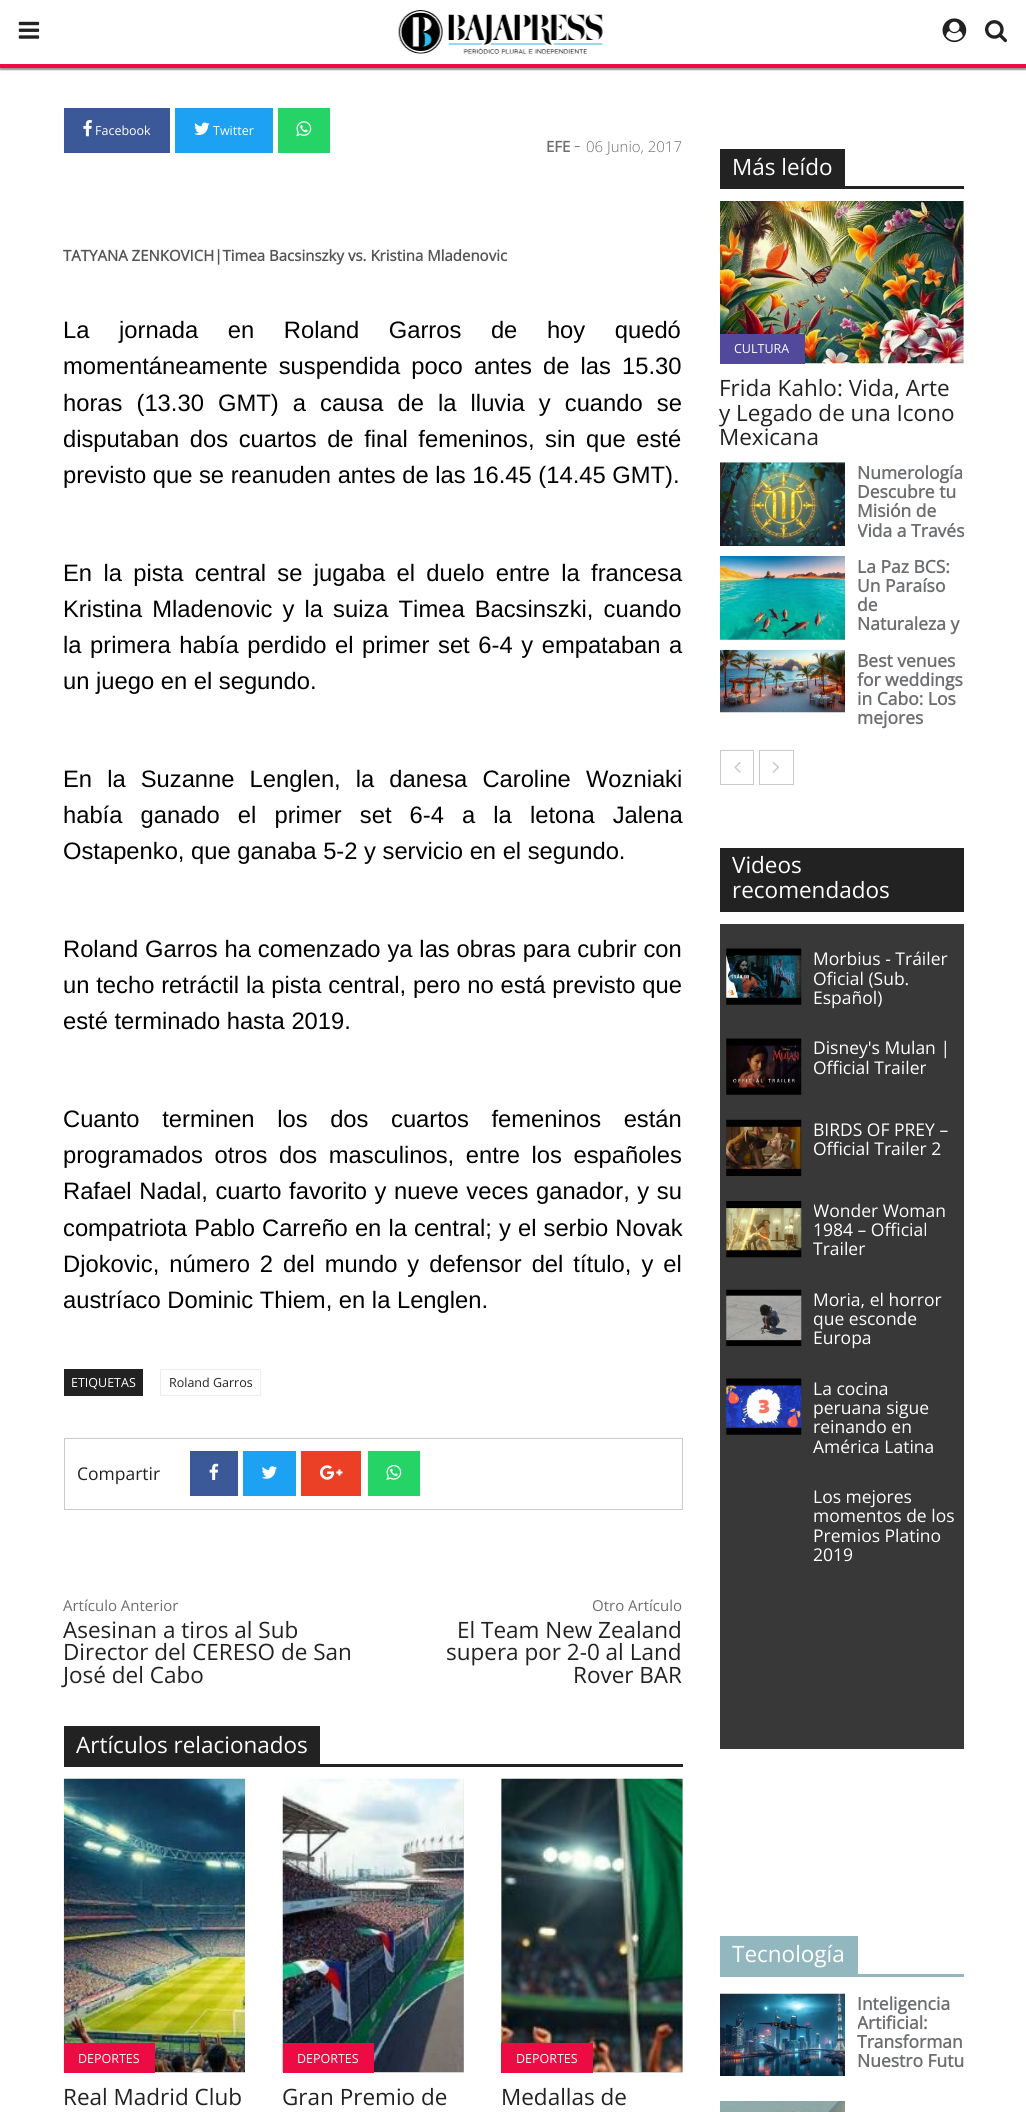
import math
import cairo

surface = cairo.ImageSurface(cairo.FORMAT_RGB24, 1026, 2112)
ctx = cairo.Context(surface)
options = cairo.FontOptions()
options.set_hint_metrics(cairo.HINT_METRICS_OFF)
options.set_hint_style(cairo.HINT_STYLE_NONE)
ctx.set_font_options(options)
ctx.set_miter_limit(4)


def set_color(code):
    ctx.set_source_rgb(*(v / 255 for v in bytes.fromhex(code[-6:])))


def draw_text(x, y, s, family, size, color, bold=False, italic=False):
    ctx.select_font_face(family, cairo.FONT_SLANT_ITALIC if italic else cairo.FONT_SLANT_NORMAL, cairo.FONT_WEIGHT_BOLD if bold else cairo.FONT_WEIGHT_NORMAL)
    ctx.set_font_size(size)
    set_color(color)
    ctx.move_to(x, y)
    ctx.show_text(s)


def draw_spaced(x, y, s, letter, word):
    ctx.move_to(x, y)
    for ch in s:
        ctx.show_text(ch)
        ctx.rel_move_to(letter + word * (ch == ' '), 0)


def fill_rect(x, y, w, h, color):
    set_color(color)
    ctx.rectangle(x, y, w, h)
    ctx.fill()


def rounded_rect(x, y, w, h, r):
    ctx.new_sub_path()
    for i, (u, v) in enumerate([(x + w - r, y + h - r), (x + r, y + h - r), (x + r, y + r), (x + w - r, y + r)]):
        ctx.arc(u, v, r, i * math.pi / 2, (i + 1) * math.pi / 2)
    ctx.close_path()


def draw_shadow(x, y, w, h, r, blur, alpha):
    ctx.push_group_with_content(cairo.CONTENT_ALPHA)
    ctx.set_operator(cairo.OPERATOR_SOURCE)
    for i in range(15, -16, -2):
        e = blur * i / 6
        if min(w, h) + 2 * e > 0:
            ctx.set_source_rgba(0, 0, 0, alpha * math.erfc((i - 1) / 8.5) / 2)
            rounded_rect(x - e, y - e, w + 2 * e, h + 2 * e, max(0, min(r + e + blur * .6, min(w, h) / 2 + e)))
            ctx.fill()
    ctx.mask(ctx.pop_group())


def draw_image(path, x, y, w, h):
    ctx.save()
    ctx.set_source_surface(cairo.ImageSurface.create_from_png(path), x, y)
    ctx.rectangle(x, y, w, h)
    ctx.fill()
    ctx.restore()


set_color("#ffffff")
ctx.paint()
set_color("#000000")
draw_shadow(0, 3, 1026, 67, 0, 0.5, 0.4)
fill_rect(0, 2, 1026, 62, "#ffffff")
fill_rect(0, 64, 1026, 4, "#ec0b43")
draw_image("assets/img1.png", 18, 21, 22, 18)
draw_image("assets/img2.png", 398, 10, 205, 44)
draw_image("assets/img3.png", 942, 18, 25, 25)
draw_image("assets/img4.png", 985, 20, 22, 23)
fill_rect(64, 108, 106, 45, "#3b5998")
draw_image("assets/img5.png", 83, 120, 9, 17)
draw_text(95, 135, "Facebook", "Open Sans", 12.5, "#ffffff")
fill_rect(175, 108, 98, 45, "#1da1f2")
draw_image("assets/img6.png", 194, 122, 16, 13)
draw_text(213, 135, "Twitter", "Open Sans", 12.5, "#ffffff")
fill_rect(278, 108, 52, 45, "#25d366")
draw_image("assets/img7.png", 296, 121, 16, 16)
draw_text(546, 152, "EFE", "Open Sans", 15, "#6d6e71", bold=True)
draw_text(574, 152, "-", "Open Sans Light", 20, "#6d6e71")
draw_text(586, 152, "06 Junio, 2017", "Open Sans Light", 15, "#6d6e71")
draw_text(63, 261, "TATYANA ZENKOVICH|Timea Bacsinszky vs. Kristina Mladenovic", "Open Sans", 15, "#555555", bold=True)
ctx.select_font_face("Liberation Sans")
ctx.set_font_size(23.75)
set_color("#000000")
draw_spaced(63, 338, "La jornada en Roland Garros de hoy quedó", 0, 23)
draw_spaced(63, 374, "momentáneamente suspendida poco antes de las 15.30", 0, 4.5)
draw_spaced(63, 411, "horas (13.30 GMT) a causa de la lluvia y cuando se", 0, 7.5)
draw_spaced(63, 447, "disputaban dos cuartos de final femeninos, sin que esté", 0, 4)
draw_text(63, 483, "previsto que se reanuden antes de las 16.45 (14.45 GMT).", "Liberation Sans", 23.75, "#000000")
draw_spaced(63, 581, "En la pista central se jugaba el duelo entre la francesa", 0, 4.75)
draw_spaced(63, 617, "Kristina Mladenovic y la suiza Timea Bacsinszki, cuando", 0, 3.5)
draw_spaced(63, 653, "la primera había perdido el primer set 6-4 y empataban a", 0, 2)
draw_text(63, 689, "un juego en el segundo.", "Liberation Sans", 23.75, "#000000")
draw_spaced(63, 787, "En la Suzanne Lenglen, la danesa Caroline Wozniaki", 0, 8.5)
draw_spaced(63, 823, "había ganado el primer set 6-4 a la letona Jalena", 0, 11.5)
draw_text(63, 859, "Ostapenko, que ganaba 5-2 y servicio en el segundo.", "Liberation Sans", 23.75, "#000000")
draw_spaced(63, 957, "Roland Garros ha comenzado ya las obras para cubrir con", 0, 0.25)
draw_spaced(63, 993, "un techo retráctil la pista central, pero no está previsto que", 0, 0.25)
draw_text(63, 1029, "esté terminado hasta 2019.", "Liberation Sans", 23.75, "#000000")
draw_spaced(63, 1127, "Cuanto terminen los dos cuartos femeninos están", 0, 16)
draw_spaced(63, 1163, "programados otros dos masculinos, entre los españoles", 0, 5)
draw_spaced(63, 1199, "Rafael Nadal, cuarto favorito y nueve veces ganador, y su", 0, 1)
draw_spaced(63, 1236, "compatriota Pablo Carreño en la central; y el serbio Novak", 0, 0.5)
draw_spaced(63, 1272, "Djokovic, número 2 del mundo y defensor del título, y el", 0, 3.4)
draw_text(63, 1308, "austríaco Dominic Thiem, en la Lenglen.", "Liberation Sans", 23.75, "#000000")
fill_rect(64, 1369, 79, 27, "#222222")
draw_text(71, 1387, "ETIQUETAS", "Open Sans", 12.5, "#ffffff")
ctx.rectangle(160.5, 1369.5, 100, 26)
set_color("#ededed")
ctx.set_line_width(1)
ctx.stroke()
draw_text(169, 1387, "Roland Garros", "Open Sans", 12.5, "#222222")
ctx.rectangle(64.5, 1438.5, 618, 71)
set_color("#cacaca")
ctx.stroke()
draw_text(77, 1480, "Compartir", "Open Sans", 17.5, "#222222")
fill_rect(190, 1451, 48, 45, "#3b5998")
draw_image("assets/img8.png", 209, 1463, 10, 17)
fill_rect(243, 1451, 53, 45, "#1da1f2")
draw_image("assets/img9.png", 261, 1466, 16, 13)
fill_rect(301, 1451, 60, 45, "#eb4026")
draw_image("assets/img10.png", 320, 1465, 23, 15)
fill_rect(368, 1451, 52, 45, "#25d366")
draw_image("assets/img11.png", 386, 1464, 16, 16)
draw_text(63, 1611, "Artículo Anterior", "Open Sans", 15, "#6d6e71")
draw_text(63, 1638, "Asesinan a tiros al Sub", "Open Sans", 22.5, "#222222")
draw_text(63, 1660, "Director del CERESO de San", "Open Sans", 22.5, "#222222")
draw_text(63, 1683, "José del Cabo", "Open Sans", 22.5, "#222222")
draw_text(592, 1611, "Otro Artículo", "Open Sans", 15, "#6d6e71")
draw_text(457, 1638, "El Team New Zealand", "Open Sans", 22.5, "#222222")
draw_text(446, 1660, "supera por 2-0 al Land", "Open Sans", 22.5, "#222222")
draw_text(573, 1683, "Rover BAR", "Open Sans", 22.5, "#222222")
fill_rect(64, 1764, 619, 3, "#222222")
fill_rect(64, 1726, 256, 38, "#222222")
draw_text(76, 1753, "Artículos relacionados", "Open Sans", 22.5, "#ffffff")
fill_rect(155, 2072, 90, 1, "#dcd9d9")
draw_image("assets/img12.png", 63, 1778, 182, 295)
fill_rect(64, 2043, 91, 30, "#ec0b43")
draw_text(78, 2063, "DEPORTES", "Open Sans", 12.5, "#ffffff")
draw_text(63, 2105, "Real Madrid Club", "Open Sans", 22.5, "#222222")
fill_rect(374, 1779, 90, 294, "#dcd9d9")
draw_image("assets/img13.png", 282, 1778, 182, 295)
fill_rect(283, 2043, 91, 30, "#ec0b43")
draw_text(297, 2063, "DEPORTES", "Open Sans", 12.5, "#ffffff")
draw_text(282, 2105, "Gran Premio de", "Open Sans", 22.5, "#222222")
fill_rect(501, 1779, 182, 294, "#dcd9d9")
draw_image("assets/img14.png", 501, 1778, 182, 295)
fill_rect(501, 2043, 92, 30, "#ec0b43")
draw_text(516, 2063, "DEPORTES", "Open Sans", 12.5, "#ffffff")
draw_text(501, 2105, "Medallas de", "Open Sans", 22.5, "#222222")
fill_rect(720, 186, 244, 3, "#222222")
fill_rect(720, 149, 125, 37, "#222222")
draw_text(732, 175, "Más leído", "Open Sans", 22.5, "#ffffff")
draw_image("assets/img15.png", 720, 201, 244, 163)
fill_rect(720, 334, 85, 30, "#52489c")
draw_text(734, 353, "CULTURA", "Open Sans", 12.5, "#ffffff")
draw_text(719, 396, "Frida Kahlo: Vida, Arte", "Open Sans", 22.5, "#222222")
draw_text(719, 421, "y Legado de una Icono", "Open Sans", 22.5, "#222222")
draw_text(719, 445, "Mexicana", "Open Sans", 22.5, "#222222")
draw_image("assets/img16.png", 720, 462, 125, 84)
draw_text(857, 479, "Numerología", "Open Sans", 17.5, "#6d6e71", bold=True)
draw_text(857, 498, "Descubre tu", "Open Sans", 17.5, "#6d6e71", bold=True)
draw_text(857, 517, "Misión de", "Open Sans", 17.5, "#6d6e71", bold=True)
ctx.save()
ctx.rectangle(858, 463, 106, 87)
ctx.clip()
draw_text(857, 537, "Vida a Través", "Open Sans", 17.5, "#6d6e71", bold=True)
ctx.restore()
draw_image("assets/img17.png", 720, 556, 125, 84)
draw_text(857, 573, "La Paz BCS:", "Open Sans", 17.5, "#6d6e71", bold=True)
draw_text(857, 592, "Un Paraíso", "Open Sans", 17.5, "#6d6e71", bold=True)
draw_text(857, 611, "de", "Open Sans", 17.5, "#6d6e71", bold=True)
draw_text(857, 630, "Naturaleza y", "Open Sans", 17.5, "#6d6e71", bold=True)
draw_image("assets/img18.png", 720, 649, 125, 64)
draw_text(857, 667, "Best venues", "Open Sans", 17.5, "#6d6e71", bold=True)
draw_text(857, 686, "for weddings", "Open Sans", 17.5, "#6d6e71", bold=True)
draw_text(857, 705, "in Cabo: Los", "Open Sans", 17.5, "#6d6e71", bold=True)
draw_text(857, 724, "mejores", "Open Sans", 17.5, "#6d6e71", bold=True)
ctx.rectangle(720.5, 750.5, 33, 34)
set_color("#cacaca")
ctx.stroke()
draw_image("assets/img19.png", 734, 761, 7, 12)
ctx.rectangle(759.5, 750.5, 34, 34)
ctx.stroke()
draw_image("assets/img20.png", 772, 761, 7, 12)
fill_rect(720, 848, 244, 64, "#222222")
draw_text(732, 873, "Videos", "Open Sans", 22.5, "#ffffff")
draw_text(732, 898, "recomendados", "Open Sans", 22.5, "#ffffff")
fill_rect(720, 924, 244, 825, "#383838")
draw_image("assets/img21.png", 726, 948, 76, 57)
draw_text(813, 965, "Morbius - Tráiler", "Open Sans", 17.5, "#ffffff")
draw_text(813, 985, "Oficial (Sub.", "Open Sans", 17.5, "#ffffff")
draw_text(813, 1004, "Español)", "Open Sans", 17.5, "#ffffff")
draw_image("assets/img22.png", 726, 1038, 76, 57)
draw_text(813, 1054, "Disney's Mulan |", "Open Sans", 17.5, "#ffffff")
draw_text(813, 1074, "Official Trailer", "Open Sans", 17.5, "#ffffff")
draw_image("assets/img23.png", 726, 1119, 76, 57)
draw_text(813, 1136, "BIRDS OF PREY –", "Open Sans", 17.5, "#ffffff")
draw_text(813, 1155, "Official Trailer 2", "Open Sans", 17.5, "#ffffff")
draw_image("assets/img24.png", 726, 1201, 76, 57)
ctx.save()
ctx.rectangle(814, 1201, 144, 64)
ctx.clip()
draw_text(813, 1217, "Wonder Woman", "Open Sans", 17.5, "#ffffff")
ctx.restore()
draw_text(813, 1236, "1984 – Official", "Open Sans", 17.5, "#ffffff")
draw_text(813, 1255, "Trailer", "Open Sans", 17.5, "#ffffff")
draw_image("assets/img25.png", 726, 1289, 76, 57)
draw_text(813, 1306, "Moria, el horror", "Open Sans", 17.5, "#ffffff")
draw_text(813, 1325, "que esconde", "Open Sans", 17.5, "#ffffff")
draw_text(813, 1344, "Europa", "Open Sans", 17.5, "#ffffff")
draw_image("assets/img26.png", 726, 1378, 76, 57)
draw_text(813, 1395, "La cocina", "Open Sans", 17.5, "#ffffff")
draw_text(813, 1414, "peruana sigue", "Open Sans", 17.5, "#ffffff")
draw_text(813, 1433, "reinando en", "Open Sans", 17.5, "#ffffff")
draw_text(813, 1453, "América Latina", "Open Sans", 17.5, "#ffffff")
draw_text(813, 1503, "Los mejores", "Open Sans", 17.5, "#ffffff")
draw_text(813, 1522, "momentos de los", "Open Sans", 17.5, "#ffffff")
draw_text(813, 1542, "Premios Platino", "Open Sans", 17.5, "#ffffff")
draw_text(813, 1561, "2019", "Open Sans", 17.5, "#ffffff")
fill_rect(720, 1974, 244, 3, "#93b7be")
fill_rect(720, 1936, 138, 38, "#93b7be")
draw_text(732, 1962, "Tecnología", "Open Sans", 22.5, "#ffffff")
draw_image("assets/img27.png", 720, 1993, 125, 83)
draw_text(857, 2010, "Inteligencia", "Open Sans", 17.5, "#6d6e71", bold=True)
ctx.save()
ctx.rectangle(858, 1994, 106, 82)
ctx.clip()
draw_text(857, 2029, "Artificial:", "Open Sans", 17.5, "#6d6e71", bold=True)
ctx.restore()
draw_text(857, 2048, "Transforman", "Open Sans", 17.5, "#6d6e71", bold=True)
draw_text(857, 2067, "Nuestro Futu", "Open Sans", 17.5, "#6d6e71", bold=True)
draw_image("assets/img28.png", 720, 2101, 125, 11)
surface.write_to_png("output.png")
